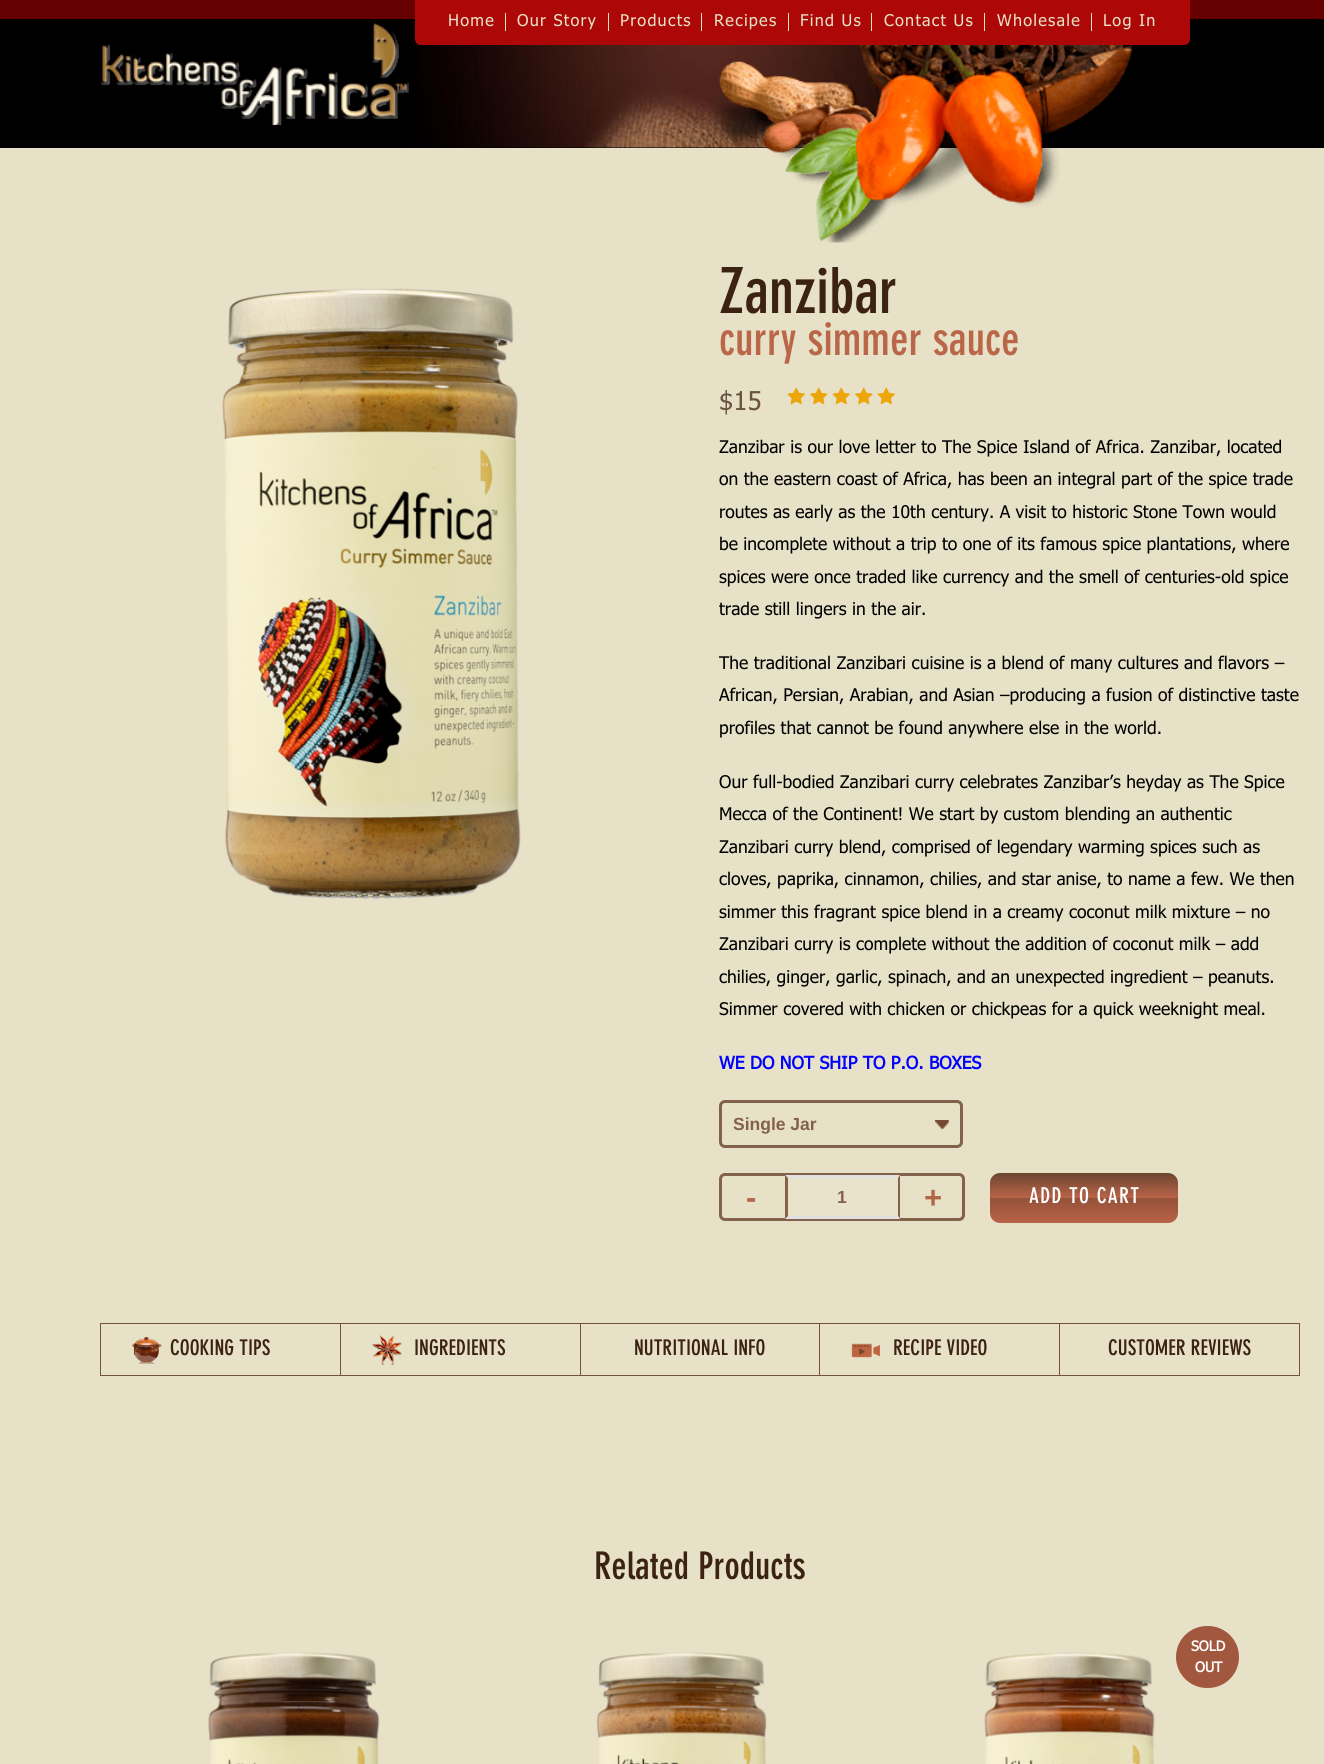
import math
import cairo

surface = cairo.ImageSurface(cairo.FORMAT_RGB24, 1324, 1764)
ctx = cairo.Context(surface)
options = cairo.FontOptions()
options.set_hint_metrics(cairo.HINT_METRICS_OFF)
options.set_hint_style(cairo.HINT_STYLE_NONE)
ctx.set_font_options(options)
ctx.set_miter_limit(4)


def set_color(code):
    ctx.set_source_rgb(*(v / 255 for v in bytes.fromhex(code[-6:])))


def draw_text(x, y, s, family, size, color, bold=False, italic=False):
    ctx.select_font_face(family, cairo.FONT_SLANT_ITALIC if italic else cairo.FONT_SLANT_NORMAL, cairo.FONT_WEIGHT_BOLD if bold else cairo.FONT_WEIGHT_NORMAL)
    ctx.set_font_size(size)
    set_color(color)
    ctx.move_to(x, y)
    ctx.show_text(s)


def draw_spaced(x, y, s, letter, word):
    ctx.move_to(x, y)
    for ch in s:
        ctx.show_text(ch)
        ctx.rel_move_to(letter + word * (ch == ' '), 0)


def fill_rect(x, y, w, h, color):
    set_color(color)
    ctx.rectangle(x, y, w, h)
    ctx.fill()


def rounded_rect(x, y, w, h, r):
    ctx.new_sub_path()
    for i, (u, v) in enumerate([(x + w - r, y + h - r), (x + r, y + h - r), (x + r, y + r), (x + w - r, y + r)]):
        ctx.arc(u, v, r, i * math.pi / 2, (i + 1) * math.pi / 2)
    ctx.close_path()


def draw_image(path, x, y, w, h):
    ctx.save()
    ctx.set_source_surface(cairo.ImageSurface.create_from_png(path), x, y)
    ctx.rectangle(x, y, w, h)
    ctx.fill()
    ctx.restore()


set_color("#e7e1c7")
ctx.paint()
fill_rect(0, 19, 1324, 129, "#000000")
draw_image("assets/img1.png", 101, 23, 308, 102)
draw_image("assets/img2.png", 409, 19, 587, 129)
set_color("#ae0707")
ctx.new_path()
ctx.move_to(415, 0)
ctx.line_to(1190, 0)
ctx.line_to(1190, 39)
ctx.curve_to(1190, 42.5, 1187.5, 45, 1184, 45)
ctx.line_to(421, 45)
ctx.curve_to(417.5, 45, 415, 42.5, 415, 39)
ctx.close_path()
ctx.fill()
fill_rect(0, 0, 415, 19, "#660000")
fill_rect(1190, 0, 134, 19, "#660000")
ctx.select_font_face("Tahoma")
ctx.set_font_size(16.25)
set_color("#e7e1c6")
draw_spaced(448, 26, "Home", 1.25, 0)
fill_rect(505, 13, 1, 18, "#e7e1c6")
draw_spaced(517, 26, "Our Story", 1.25, 0)
fill_rect(608, 13, 1, 18, "#e7e1c6")
draw_spaced(620, 26, "Products", 1.25, 0)
fill_rect(701, 13, 1, 18, "#e7e1c6")
draw_spaced(714, 26, "Recipes", 1.25, 0)
fill_rect(788, 13, 1, 18, "#e7e1c6")
draw_spaced(800, 26, "Find Us", 1.25, 0)
fill_rect(871, 13, 1, 18, "#e7e1c6")
draw_spaced(884, 26, "Contact Us", 1.25, 0)
fill_rect(984, 13, 1, 18, "#e7e1c6")
draw_spaced(997, 26, "Wholesale", 1.25, 0)
fill_rect(1091, 13, 1, 18, "#e7e1c6")
draw_spaced(1103, 26, "Log In", 1.25, 0)
draw_image("assets/img3.png", 709, 45, 424, 198)
draw_image("assets/img4.png", 222, 288, 299, 611)
draw_text(719, 313, "Zanzibar", "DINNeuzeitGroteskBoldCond", 62.5, "#3c2212", bold=True)
draw_text(719, 355, "curry simmer sauce", "DINNeuzeitGroteskBoldCond", 45.5, "#ba6648", bold=True)
draw_image("assets/img5.png", 787, 387, 18, 18)
draw_image("assets/img6.png", 810, 387, 18, 18)
draw_image("assets/img5.png", 832, 387, 18, 18)
draw_image("assets/img6.png", 855, 387, 18, 18)
draw_image("assets/img5.png", 877, 387, 18, 18)
draw_text(719, 410, "$15", "Tahoma", 26, "#695441")
draw_text(719, 453, "Zanzibar is our love letter to The Spice Island of Africa. Zanzibar, located", "Tahoma", 17.5, "#000000")
draw_text(719, 485, "on the eastern coast of Africa, has been an integral part of the spice trade", "Tahoma", 17.5, "#000000")
draw_text(719, 518, "routes as early as the 10th century. A visit to historic Stone Town would", "Tahoma", 17.5, "#000000")
draw_text(719, 550, "be incomplete without a trip to one of its famous spice plantations, where", "Tahoma", 17.5, "#000000")
draw_text(719, 583, "spices were once traded like currency and the smell of centuries-old spice", "Tahoma", 17.5, "#000000")
draw_text(719, 615, "trade still lingers in the air.", "Tahoma", 17.5, "#000000")
draw_text(719, 669, "The traditional Zanzibari cuisine is a blend of many cultures and flavors –", "Tahoma", 17.5, "#000000")
draw_text(719, 701, "African, Persian, Arabian, and Asian –producing a fusion of distinctive taste", "Tahoma", 17.5, "#000000")
draw_text(719, 734, "profiles that cannot be found anywhere else in the world.", "Tahoma", 17.5, "#000000")
draw_text(719, 788, "Our full-bodied Zanzibari curry celebrates Zanzibar’s heyday as The Spice", "Tahoma", 17.5, "#000000")
draw_text(719, 820, "Mecca of the Continent! We start by custom blending an authentic", "Tahoma", 17.5, "#000000")
draw_text(719, 853, "Zanzibari curry blend, comprised of legendary warming spices such as", "Tahoma", 17.5, "#000000")
draw_text(719, 885, "cloves, paprika, cinnamon, chilies, and star anise, to name a few. We then", "Tahoma", 17.5, "#000000")
draw_text(719, 918, "simmer this fragrant spice blend in a creamy coconut milk mixture – no", "Tahoma", 17.5, "#000000")
draw_text(719, 950, "Zanzibari curry is complete without the addition of coconut milk – add", "Tahoma", 17.5, "#000000")
draw_text(719, 983, "chilies, ginger, garlic, spinach, and an unexpected ingredient – peanuts.", "Tahoma", 17.5, "#000000")
draw_text(719, 1015, "Simmer covered with chicken or chickpeas for a quick weeknight meal.", "Tahoma", 17.5, "#000000")
draw_text(719, 1069, "WE DO NOT SHIP TO P.O. BOXES", "Tahoma", 17.5, "#0000ff", bold=True)
draw_image("assets/img7.png", 935, 1120, 14, 9)
rounded_rect(720.5, 1101.5, 241, 45, 4.5)
set_color("#83614a")
ctx.set_line_width(3)
ctx.stroke()
draw_text(733, 1130, "Single Jar", "Liberation Sans", 17.5, "#83614a", bold=True)
rounded_rect(720.5, 1174.5, 243, 45, 4.5)
ctx.stroke()
draw_text(746, 1208, "-", "Liberation Sans", 31, "#b16648", bold=True)
fill_rect(785, 1175, 115, 44, "#e9e3cb")
set_color("#e1e1e1")
ctx.new_path()
ctx.move_to(785, 1175)
ctx.line_to(900, 1175)
ctx.line_to(898, 1178)
ctx.line_to(788, 1178)
ctx.close_path()
ctx.fill()
set_color("#83614a")
ctx.new_path()
ctx.move_to(900, 1175)
ctx.line_to(900, 1219)
ctx.line_to(898, 1216)
ctx.line_to(898, 1178)
ctx.close_path()
ctx.fill()
set_color("#e1e1e1")
ctx.new_path()
ctx.move_to(900, 1219)
ctx.line_to(785, 1219)
ctx.line_to(788, 1216)
ctx.line_to(898, 1216)
ctx.close_path()
ctx.fill()
set_color("#83614a")
ctx.new_path()
ctx.move_to(785, 1219)
ctx.line_to(785, 1175)
ctx.line_to(788, 1178)
ctx.line_to(788, 1216)
ctx.close_path()
ctx.fill()
draw_text(837, 1203, "1", "Liberation Sans", 17.5, "#83614a", bold=True)
draw_text(924, 1208, "+", "Liberation Sans", 31, "#b16648", bold=True)
gradient = cairo.LinearGradient(1084, 1173, 1084, 1223)
gradient.add_color_stop_rgba(0, 0.424, 0.275, 0.192, 1)
gradient.add_color_stop_rgba(0.49, 0.718, 0.388, 0.278, 1)
gradient.add_color_stop_rgba(0.5, 0.584, 0.318, 0.227, 1)
gradient.add_color_stop_rgba(1, 0.718, 0.388, 0.278, 1)
ctx.set_source(gradient)
rounded_rect(990, 1173, 188, 50, 10)
ctx.fill()
ctx.select_font_face("DINNeuzeitGroteskBoldCond", cairo.FONT_SLANT_NORMAL, cairo.FONT_WEIGHT_BOLD)
ctx.set_font_size(21.5)
set_color("#ffffff")
draw_spaced(1029, 1203, "ADD TO CART", 1.25, 0)
ctx.rectangle(100.5, 1323.5, 240, 52)
set_color("#78533c")
ctx.set_line_width(1)
ctx.stroke()
draw_image("assets/img8.png", 132, 1337, 30, 27)
draw_text(170, 1355, "COOKING TIPS", "DINNeuzeitGroteskBoldCond", 21.25, "#3c2212", bold=True)
fill_rect(341, 1323, 959, 1, "#78533c")
fill_rect(580, 1323, 1, 53, "#78533c")
fill_rect(341, 1375, 240, 1, "#78533c")
draw_image("assets/img9.png", 372, 1335, 30, 30)
draw_text(414, 1355, "INGREDIENTS", "DINNeuzeitGroteskBoldCond", 21.25, "#3c2212", bold=True)
fill_rect(819, 1323, 1, 53, "#78533c")
fill_rect(581, 1375, 239, 1, "#78533c")
draw_text(634, 1355, "NUTRITIONAL INFO", "DINNeuzeitGroteskBoldCond", 21.25, "#3c2212", bold=True)
fill_rect(1059, 1323, 1, 53, "#78533c")
fill_rect(820, 1375, 240, 1, "#78533c")
draw_image("assets/img10.png", 851, 1343, 29, 15)
draw_text(893, 1355, "RECIPE VIDEO", "DINNeuzeitGroteskBoldCond", 21.25, "#3c2212", bold=True)
fill_rect(1299, 1323, 1, 53, "#78533c")
fill_rect(1060, 1375, 240, 1, "#78533c")
draw_text(1108, 1355, "CUSTOMER REVIEWS", "DINNeuzeitGroteskBoldCond", 21.25, "#3c2212", bold=True)
draw_text(594, 1579, "Related Products", "DINNeuzeitGroteskBoldCond", 37.5, "#3c2212", bold=True)
draw_image("assets/img11.png", 208, 1652, 172, 112)
draw_image("assets/img12.png", 596, 1652, 171, 112)
draw_image("assets/img13.png", 984, 1652, 171, 112)
set_color("#a1583e")
rounded_rect(1176, 1626, 63, 62, 31)
ctx.fill()
draw_text(1191, 1651, "SOLD", "Tahoma", 14, "#ffffff", bold=True)
draw_text(1195, 1672, "OUT", "Tahoma", 14, "#ffffff", bold=True)
surface.write_to_png("output.png")
